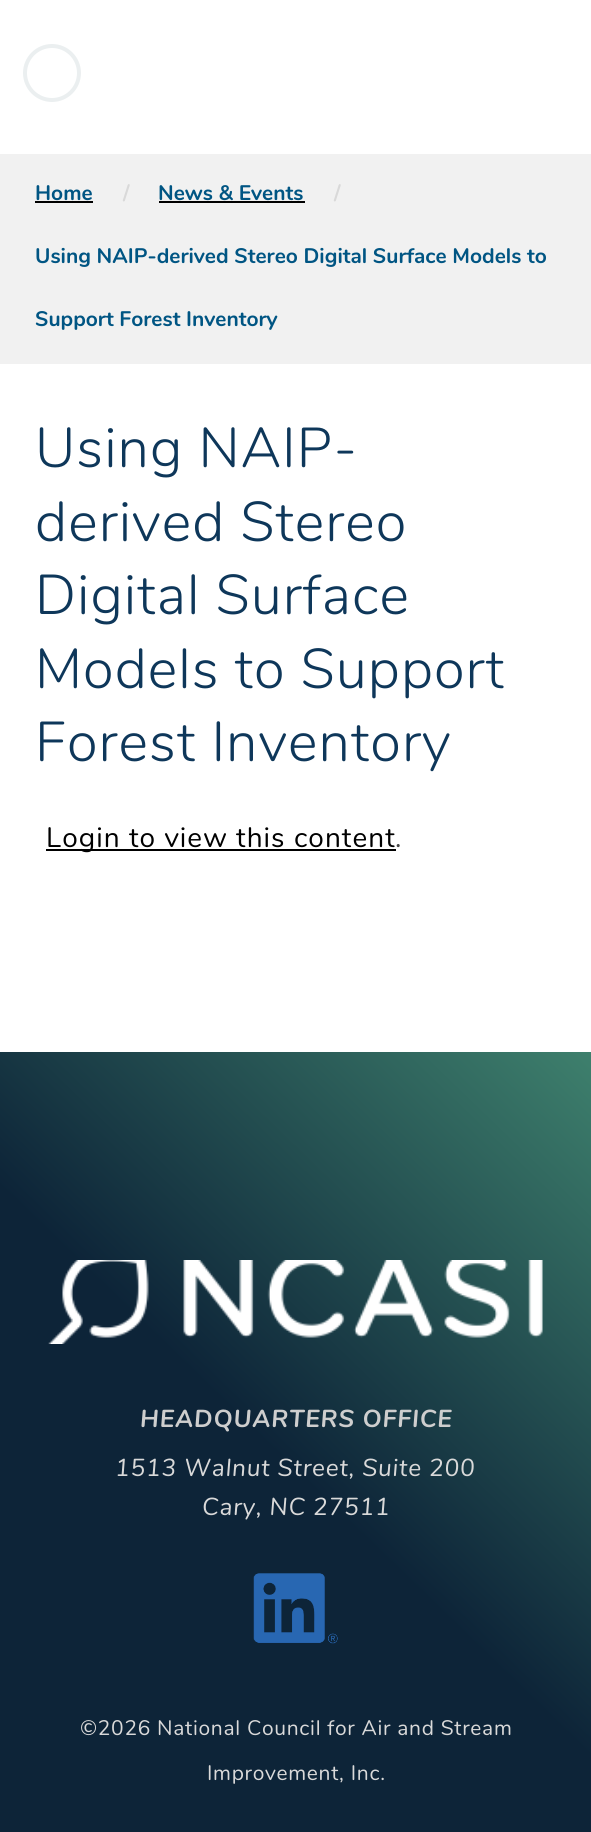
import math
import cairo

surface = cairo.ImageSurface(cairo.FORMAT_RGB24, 591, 1832)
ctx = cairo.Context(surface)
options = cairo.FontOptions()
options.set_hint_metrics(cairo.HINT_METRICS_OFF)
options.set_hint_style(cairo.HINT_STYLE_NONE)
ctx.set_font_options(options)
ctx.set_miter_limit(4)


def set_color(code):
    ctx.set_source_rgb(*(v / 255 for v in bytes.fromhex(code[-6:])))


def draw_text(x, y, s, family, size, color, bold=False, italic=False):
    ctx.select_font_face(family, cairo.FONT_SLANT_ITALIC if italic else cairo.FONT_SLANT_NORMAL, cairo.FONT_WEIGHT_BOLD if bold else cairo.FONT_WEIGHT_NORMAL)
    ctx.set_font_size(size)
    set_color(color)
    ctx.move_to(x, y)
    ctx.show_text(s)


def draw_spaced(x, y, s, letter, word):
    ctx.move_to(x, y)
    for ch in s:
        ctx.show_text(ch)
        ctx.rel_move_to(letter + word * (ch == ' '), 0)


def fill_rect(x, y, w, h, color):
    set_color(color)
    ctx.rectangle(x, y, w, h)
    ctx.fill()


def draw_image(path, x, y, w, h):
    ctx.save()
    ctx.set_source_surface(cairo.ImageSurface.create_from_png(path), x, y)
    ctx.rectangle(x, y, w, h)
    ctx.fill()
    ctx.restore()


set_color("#ffffff")
ctx.paint()
ctx.arc(52, 73, 27, 0, 2 * math.pi)
set_color("#ebeff0")
ctx.set_line_width(4)
ctx.stroke()
fill_rect(0, 154, 591, 210, "#f1f1f1")
draw_text(35, 200, "Home", "Nunito", 21, "#005583", bold=True)
fill_rect(35, 201, 58, 2, "#000000")
draw_text(123, 200, "/", "Nunito", 21, "#d9d9d9", bold=True)
draw_text(158, 200, "News & Events", "Nunito", 21, "#005583", bold=True)
fill_rect(159, 201, 146, 2, "#000000")
draw_text(334, 200, "/", "Nunito", 21, "#d9d9d9", bold=True)
draw_text(35, 263, "Using NAIP-derived Stereo Digital Surface Models to", "Nunito", 21, "#005583", bold=True)
draw_text(35, 326, "Support Forest Inventory", "Nunito", 21, "#005583", bold=True)
ctx.select_font_face("Nunito Light")
ctx.set_font_size(56)
set_color("#0e375a")
draw_spaced(35, 467, "Using NAIP-", 1.05, 0)
draw_spaced(35, 541, "derived Stereo", 1.05, 0)
draw_spaced(35, 614, "Digital Surface", 1.05, 0)
draw_spaced(35, 688, "Models to Support", 1.05, 0)
draw_spaced(35, 761, "Forest Inventory", 1.05, 0)
fill_rect(46, 849, 350, 2, "#000000")
ctx.select_font_face("Nunito")
ctx.set_font_size(28)
draw_spaced(46, 847, "Login to view this content", 1.05, 0)
set_color("#464646")
draw_spaced(395, 847, ".", 1.05, 0)
gradient = cairo.LinearGradient(-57, 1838, 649, 1107)
gradient.add_color_stop_rgba(0.5, 0.051, 0.141, 0.22, 1)
gradient.add_color_stop_rgba(1, 0.243, 0.502, 0.427, 1)
ctx.set_source(gradient)
ctx.rectangle(0, 1052, 591, 780)
ctx.fill()
draw_image("assets/img1.png", 48, 1260, 495, 84)
ctx.select_font_face("Nunito", cairo.FONT_SLANT_ITALIC, cairo.FONT_WEIGHT_BOLD)
ctx.set_font_size(24.5)
set_color("#cecece")
draw_spaced(140, 1427, "HEADQUARTERS OFFICE", 0.9, 0)
ctx.select_font_face("Nunito", cairo.FONT_SLANT_ITALIC)
set_color("#d9d9d9")
draw_spaced(115, 1476, "1513 Walnut Street, Suite 200", 0.8, 0)
draw_spaced(202, 1515, "Cary, NC 27511", 0.8, 0)
draw_image("assets/img2.png", 253, 1573, 85, 71)
ctx.select_font_face("Nunito")
ctx.set_font_size(21)
draw_spaced(80, 1735, "©2026 National Council for Air and Stream", 0.7, 0)
draw_spaced(207, 1780, "Improvement, Inc.", 0.7, 0)
surface.write_to_png("output.png")
